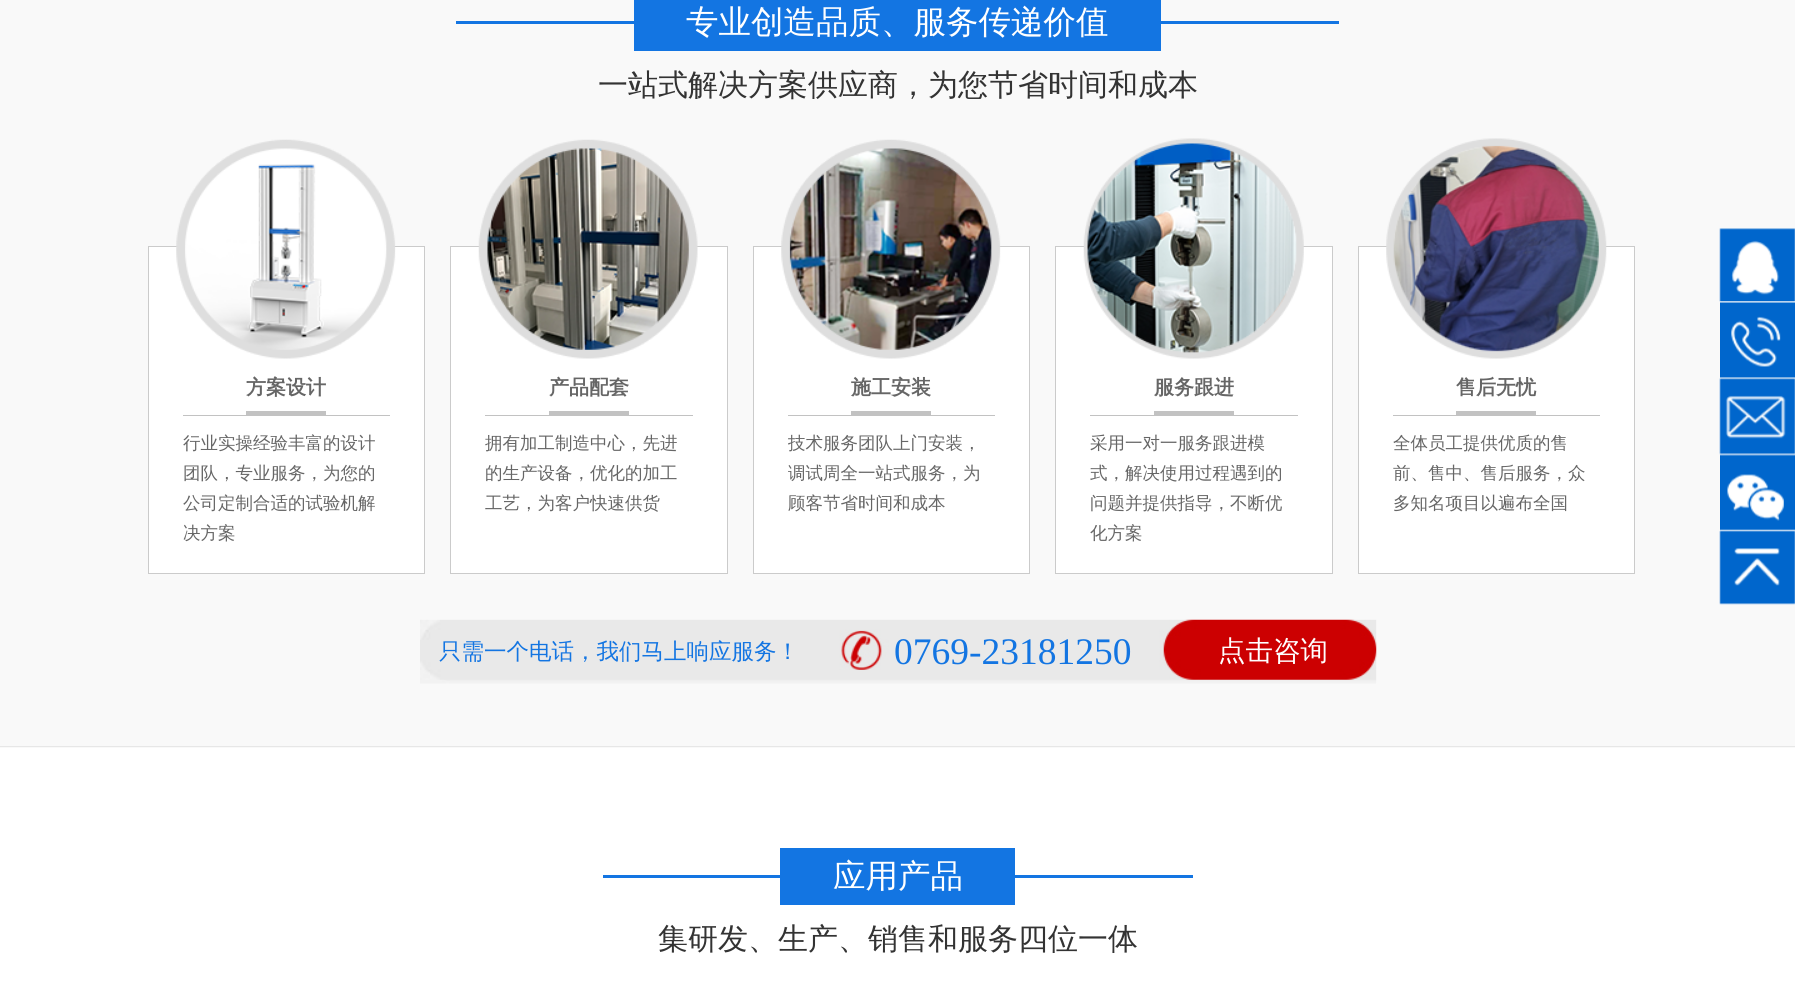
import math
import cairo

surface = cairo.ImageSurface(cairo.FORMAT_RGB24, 1795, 983)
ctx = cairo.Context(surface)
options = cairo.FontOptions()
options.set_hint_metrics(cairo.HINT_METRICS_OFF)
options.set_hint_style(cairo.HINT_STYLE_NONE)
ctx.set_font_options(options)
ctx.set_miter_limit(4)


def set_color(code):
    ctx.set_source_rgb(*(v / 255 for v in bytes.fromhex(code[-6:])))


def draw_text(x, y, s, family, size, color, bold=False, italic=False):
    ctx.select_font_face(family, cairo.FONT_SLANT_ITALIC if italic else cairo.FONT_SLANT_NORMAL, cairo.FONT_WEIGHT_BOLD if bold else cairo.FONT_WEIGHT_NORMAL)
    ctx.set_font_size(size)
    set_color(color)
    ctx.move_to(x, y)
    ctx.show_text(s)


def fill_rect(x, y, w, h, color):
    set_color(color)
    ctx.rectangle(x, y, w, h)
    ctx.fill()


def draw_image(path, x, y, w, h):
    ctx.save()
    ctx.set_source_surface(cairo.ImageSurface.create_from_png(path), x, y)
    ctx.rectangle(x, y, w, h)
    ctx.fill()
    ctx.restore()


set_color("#ffffff")
ctx.paint()
fill_rect(0, 0, 1795, 748, "#f9f9f9")
fill_rect(0, 746, 1795, 1, "#e7e7e7")
fill_rect(634, 0, 527, 51, "#1375e2")
fill_rect(456, 21, 180, 3, "#1375e2")
draw_text(686, 33, "专业创造品质、服务传递价值", "WenQuanYi Zen Hei Medium", 32.5, "#ffffff")
fill_rect(1159, 21, 180, 3, "#1375e2")
draw_text(598, 95, "一站式解决方案供应商，为您节省时间和成本", "WenQuanYi Zen Hei Medium", 30, "#333333")
set_color("#ffffff")
ctx.rectangle(148.5, 246.5, 276, 327)
ctx.fill_preserve()
set_color("#cbcbcb")
ctx.set_line_width(1)
ctx.stroke()
draw_image("assets/img1.png", 176, 139, 220, 220)
fill_rect(183, 415, 207, 1, "#c2c2c2")
fill_rect(246, 411, 80, 4, "#c2c2c2")
draw_text(246, 394, "方案设计", "WenQuanYi Zen Hei", 20, "#666666", bold=True)
draw_text(183, 449, "行业实操经验丰富的设计", "WenQuanYi Zen Hei Medium", 17.5, "#666666")
draw_text(183, 479, "团队，专业服务，为您的", "WenQuanYi Zen Hei Medium", 17.5, "#666666")
draw_text(183, 509, "公司定制合适的试验机解", "WenQuanYi Zen Hei Medium", 17.5, "#666666")
draw_text(183, 539, "决方案", "WenQuanYi Zen Hei Medium", 17.5, "#666666")
set_color("#ffffff")
ctx.rectangle(450.5, 246.5, 277, 327)
ctx.fill_preserve()
set_color("#cbcbcb")
ctx.stroke()
draw_image("assets/img2.png", 478, 139, 220, 220)
fill_rect(485, 415, 208, 1, "#c2c2c2")
fill_rect(549, 411, 80, 4, "#c2c2c2")
draw_text(549, 394, "产品配套", "WenQuanYi Zen Hei", 20, "#666666", bold=True)
draw_text(485, 449, "拥有加工制造中心，先进", "WenQuanYi Zen Hei Medium", 17.5, "#666666")
draw_text(485, 479, "的生产设备，优化的加工", "WenQuanYi Zen Hei Medium", 17.5, "#666666")
draw_text(485, 509, "工艺，为客户快速供货", "WenQuanYi Zen Hei Medium", 17.5, "#666666")
set_color("#ffffff")
ctx.rectangle(753.5, 246.5, 276, 327)
ctx.fill_preserve()
set_color("#cbcbcb")
ctx.stroke()
draw_image("assets/img3.png", 781, 139, 220, 220)
fill_rect(788, 415, 207, 1, "#c2c2c2")
fill_rect(851, 411, 80, 4, "#c2c2c2")
draw_text(851, 394, "施工安装", "WenQuanYi Zen Hei", 20, "#666666", bold=True)
draw_text(788, 449, "技术服务团队上门安装，", "WenQuanYi Zen Hei Medium", 17.5, "#666666")
draw_text(788, 479, "调试周全一站式服务，为", "WenQuanYi Zen Hei Medium", 17.5, "#666666")
draw_text(788, 509, "顾客节省时间和成本", "WenQuanYi Zen Hei Medium", 17.5, "#666666")
set_color("#ffffff")
ctx.rectangle(1055.5, 246.5, 277, 327)
ctx.fill_preserve()
set_color("#cbcbcb")
ctx.stroke()
draw_image("assets/img4.png", 1083, 138, 221, 221)
fill_rect(1090, 415, 208, 1, "#c2c2c2")
fill_rect(1154, 411, 80, 4, "#c2c2c2")
draw_text(1154, 394, "服务跟进", "WenQuanYi Zen Hei", 20, "#666666", bold=True)
draw_text(1090, 449, "采用一对一服务跟进模", "WenQuanYi Zen Hei Medium", 17.5, "#666666")
draw_text(1090, 479, "式，解决使用过程遇到的", "WenQuanYi Zen Hei Medium", 17.5, "#666666")
draw_text(1090, 509, "问题并提供指导，不断优", "WenQuanYi Zen Hei Medium", 17.5, "#666666")
draw_text(1090, 539, "化方案", "WenQuanYi Zen Hei Medium", 17.5, "#666666")
set_color("#ffffff")
ctx.rectangle(1358.5, 246.5, 276, 327)
ctx.fill_preserve()
set_color("#cbcbcb")
ctx.stroke()
draw_image("assets/img5.png", 1386, 138, 221, 221)
fill_rect(1393, 415, 207, 1, "#c2c2c2")
fill_rect(1456, 411, 80, 4, "#c2c2c2")
draw_text(1456, 394, "售后无忧", "WenQuanYi Zen Hei", 20, "#666666", bold=True)
draw_text(1393, 449, "全体员工提供优质的售", "WenQuanYi Zen Hei Medium", 17.5, "#666666")
draw_text(1393, 479, "前、售中、售后服务，众", "WenQuanYi Zen Hei Medium", 17.5, "#666666")
draw_text(1393, 509, "多知名项目以遍布全国", "WenQuanYi Zen Hei Medium", 17.5, "#666666")
draw_image("assets/img6.png", 420, 619, 957, 65)
draw_text(439, 659, "只需一个电话，我们马上响应服务！", "WenQuanYi Zen Hei Medium", 22.5, "#1375e2")
draw_text(894, 664, "0769-23181250", "Liberation Serif", 37.5, "#1375e2")
draw_text(1218, 660, "点击咨询", "WenQuanYi Zen Hei Medium", 27.5, "#ffffff")
fill_rect(780, 848, 235, 57, "#1375e2")
fill_rect(603, 875, 180, 3, "#1375e2")
draw_text(833, 887, "应用产品", "WenQuanYi Zen Hei Medium", 32.5, "#ffffff")
fill_rect(1013, 875, 180, 3, "#1375e2")
draw_text(658, 949, "集研发、生产、销售和服务四位一体", "WenQuanYi Zen Hei Medium", 30, "#333333")
draw_image("assets/img7.png", 1719, 228, 76, 74)
draw_image("assets/img8.png", 1720, 302, 75, 76)
draw_image("assets/img9.png", 1719, 378, 76, 77)
draw_image("assets/img10.png", 1720, 454, 75, 77)
draw_image("assets/img11.png", 1719, 531, 76, 74)
surface.write_to_png("output.png")
